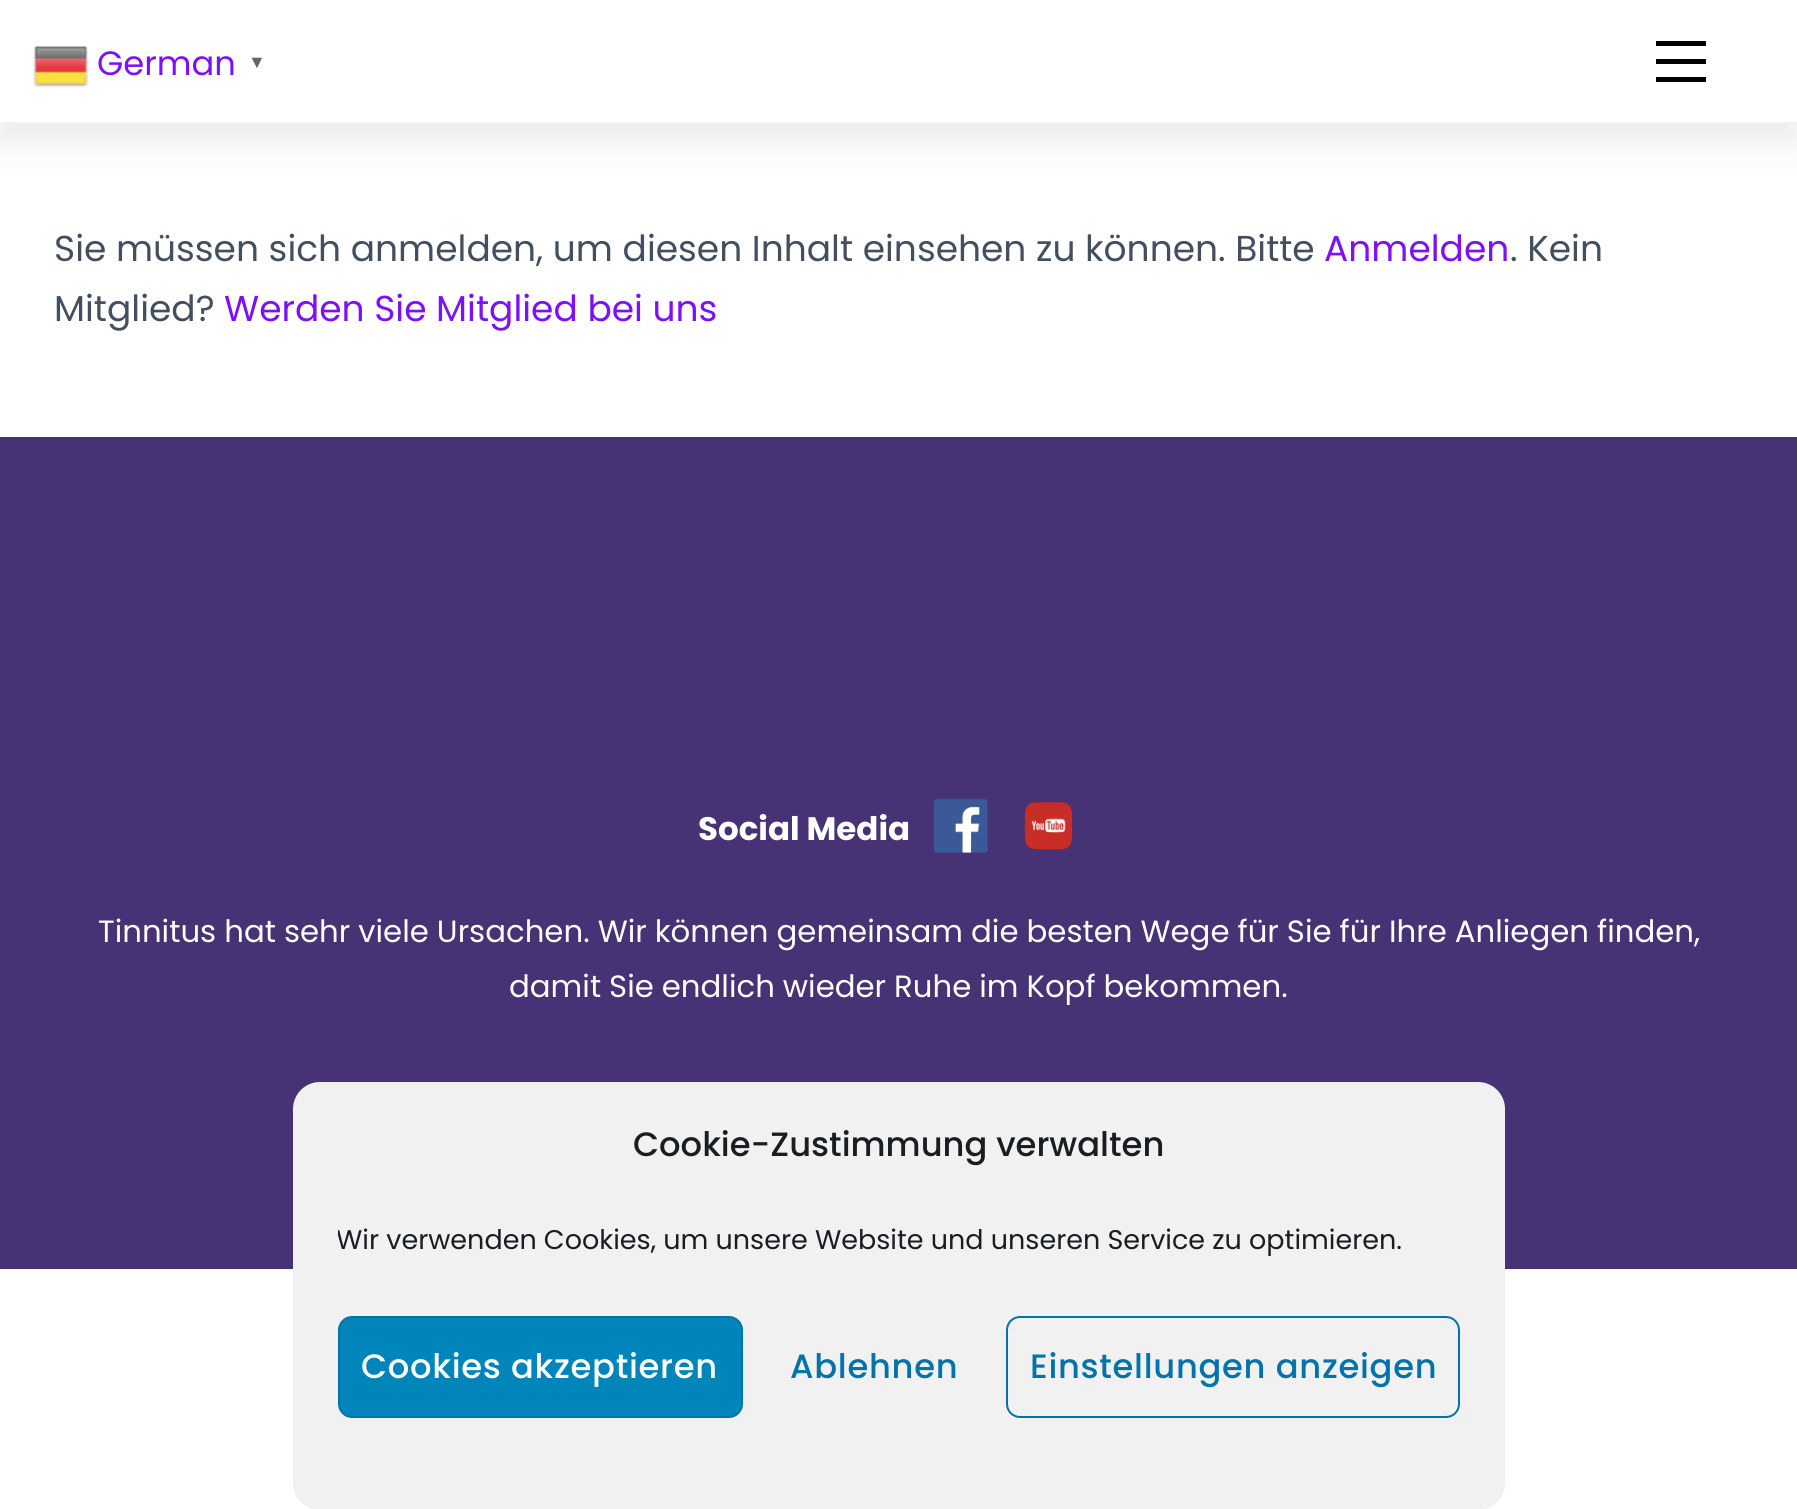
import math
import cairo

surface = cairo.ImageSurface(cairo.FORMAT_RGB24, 1797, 1509)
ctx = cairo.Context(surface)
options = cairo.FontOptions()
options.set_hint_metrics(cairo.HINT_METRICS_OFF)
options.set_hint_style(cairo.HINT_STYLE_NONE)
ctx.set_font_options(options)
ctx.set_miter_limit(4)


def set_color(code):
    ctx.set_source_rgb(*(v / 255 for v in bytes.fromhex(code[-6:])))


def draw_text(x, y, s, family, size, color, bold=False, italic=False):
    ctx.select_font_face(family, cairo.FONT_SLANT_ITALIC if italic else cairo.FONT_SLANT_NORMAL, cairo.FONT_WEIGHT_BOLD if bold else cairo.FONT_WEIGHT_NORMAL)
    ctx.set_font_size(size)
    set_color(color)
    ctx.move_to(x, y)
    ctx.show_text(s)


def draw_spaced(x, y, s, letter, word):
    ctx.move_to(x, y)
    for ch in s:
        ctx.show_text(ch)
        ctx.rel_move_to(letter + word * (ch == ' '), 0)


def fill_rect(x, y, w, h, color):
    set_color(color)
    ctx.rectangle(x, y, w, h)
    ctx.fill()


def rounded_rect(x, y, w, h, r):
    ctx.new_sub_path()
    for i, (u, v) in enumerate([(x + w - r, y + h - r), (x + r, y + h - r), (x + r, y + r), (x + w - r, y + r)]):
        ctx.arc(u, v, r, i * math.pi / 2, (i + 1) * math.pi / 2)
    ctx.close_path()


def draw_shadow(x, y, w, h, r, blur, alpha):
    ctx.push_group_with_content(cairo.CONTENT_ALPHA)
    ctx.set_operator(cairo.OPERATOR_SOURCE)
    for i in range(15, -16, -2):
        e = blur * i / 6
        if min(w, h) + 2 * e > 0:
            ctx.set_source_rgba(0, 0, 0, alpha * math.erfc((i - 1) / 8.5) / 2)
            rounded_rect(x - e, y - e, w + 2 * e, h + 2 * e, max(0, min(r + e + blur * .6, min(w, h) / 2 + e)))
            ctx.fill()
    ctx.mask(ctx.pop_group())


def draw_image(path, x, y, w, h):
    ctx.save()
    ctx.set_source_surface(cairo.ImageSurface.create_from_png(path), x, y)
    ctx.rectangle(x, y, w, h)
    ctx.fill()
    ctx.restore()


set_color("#ffffff")
ctx.paint()
set_color("#000000")
draw_shadow(0, 16, 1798, 124, 0, 20, 0.09)
fill_rect(0, 0, 1797, 122, "#ffffff")
draw_image("assets/img1.png", 33, 45, 55, 43)
draw_text(97, 75, "German", "Poppins", 33.75, "#7c10f7")
draw_text(248, 68, "▼", "Liberation Sans", 18, "#666666", bold=True)
fill_rect(0, 122, 1797, 2, "#f2f2f2")
fill_rect(1656, 77, 50, 5, "#000000")
fill_rect(1656, 41, 50, 5, "#000000")
fill_rect(1656, 59, 50, 5, "#000000")
draw_text(54, 261, "Sie müssen sich anmelden, um diesen Inhalt einsehen zu können. Bitte", "Poppins", 36, "#434e5f")
draw_text(1324, 261, "Anmelden", "Poppins", 36, "#7c10f7")
draw_text(1510, 261, ". Kein", "Poppins", 36, "#434e5f")
draw_text(54, 321, "Mitglied?", "Poppins", 36, "#434e5f")
draw_text(224, 321, "Werden Sie Mitglied bei uns", "Poppins", 36, "#7c10f7")
fill_rect(0, 437, 1797, 832, "#463274")
draw_text(698, 840, "Social Media", "Poppins", 32.5, "#ffffff", bold=True)
draw_image("assets/img2.png", 933, 798, 55, 55)
draw_image("assets/img3.png", 1024, 801, 49, 49)
ctx.select_font_face("Poppins")
ctx.set_font_size(30.78)
draw_spaced(98, 942, "Tinnitus hat sehr viele Ursachen. Wir können gemeinsam die besten Wege für Sie für Ihre Anliegen finden,", 0, -0.2)
draw_spaced(509, 997, "damit Sie endlich wieder Ruhe im Kopf bekommen.", 0, -0.25)
set_color("#f1f1f1")
rounded_rect(293, 1082, 1212, 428, 27)
ctx.fill()
draw_text(633, 1156, "Cookie-Zustimmung verwalten", "Poppins Medium", 33.75, "#191e23")
ctx.save()
ctx.rectangle(338, 1220, 1122, 51)
ctx.clip()
draw_text(336, 1249, "Wir verwenden Cookies, um unsere Website und unseren Service zu optimieren.", "Poppins", 27, "#191e23")
ctx.restore()
set_color("#0085ba")
rounded_rect(339, 1317, 403, 100, 13)
ctx.fill_preserve()
set_color("#0073aa")
ctx.stroke()
set_color("#ffffff")
draw_spaced(361, 1378, "Cookies akzeptieren", 0.7, 0)
set_color("#0073aa")
draw_spaced(790, 1378, "Ablehnen", 0.7, 0)
rounded_rect(1007, 1317, 452, 100, 13)
ctx.stroke()
draw_spaced(1030, 1378, "Einstellungen anzeigen", 0.7, 0)
surface.write_to_png("output.png")
